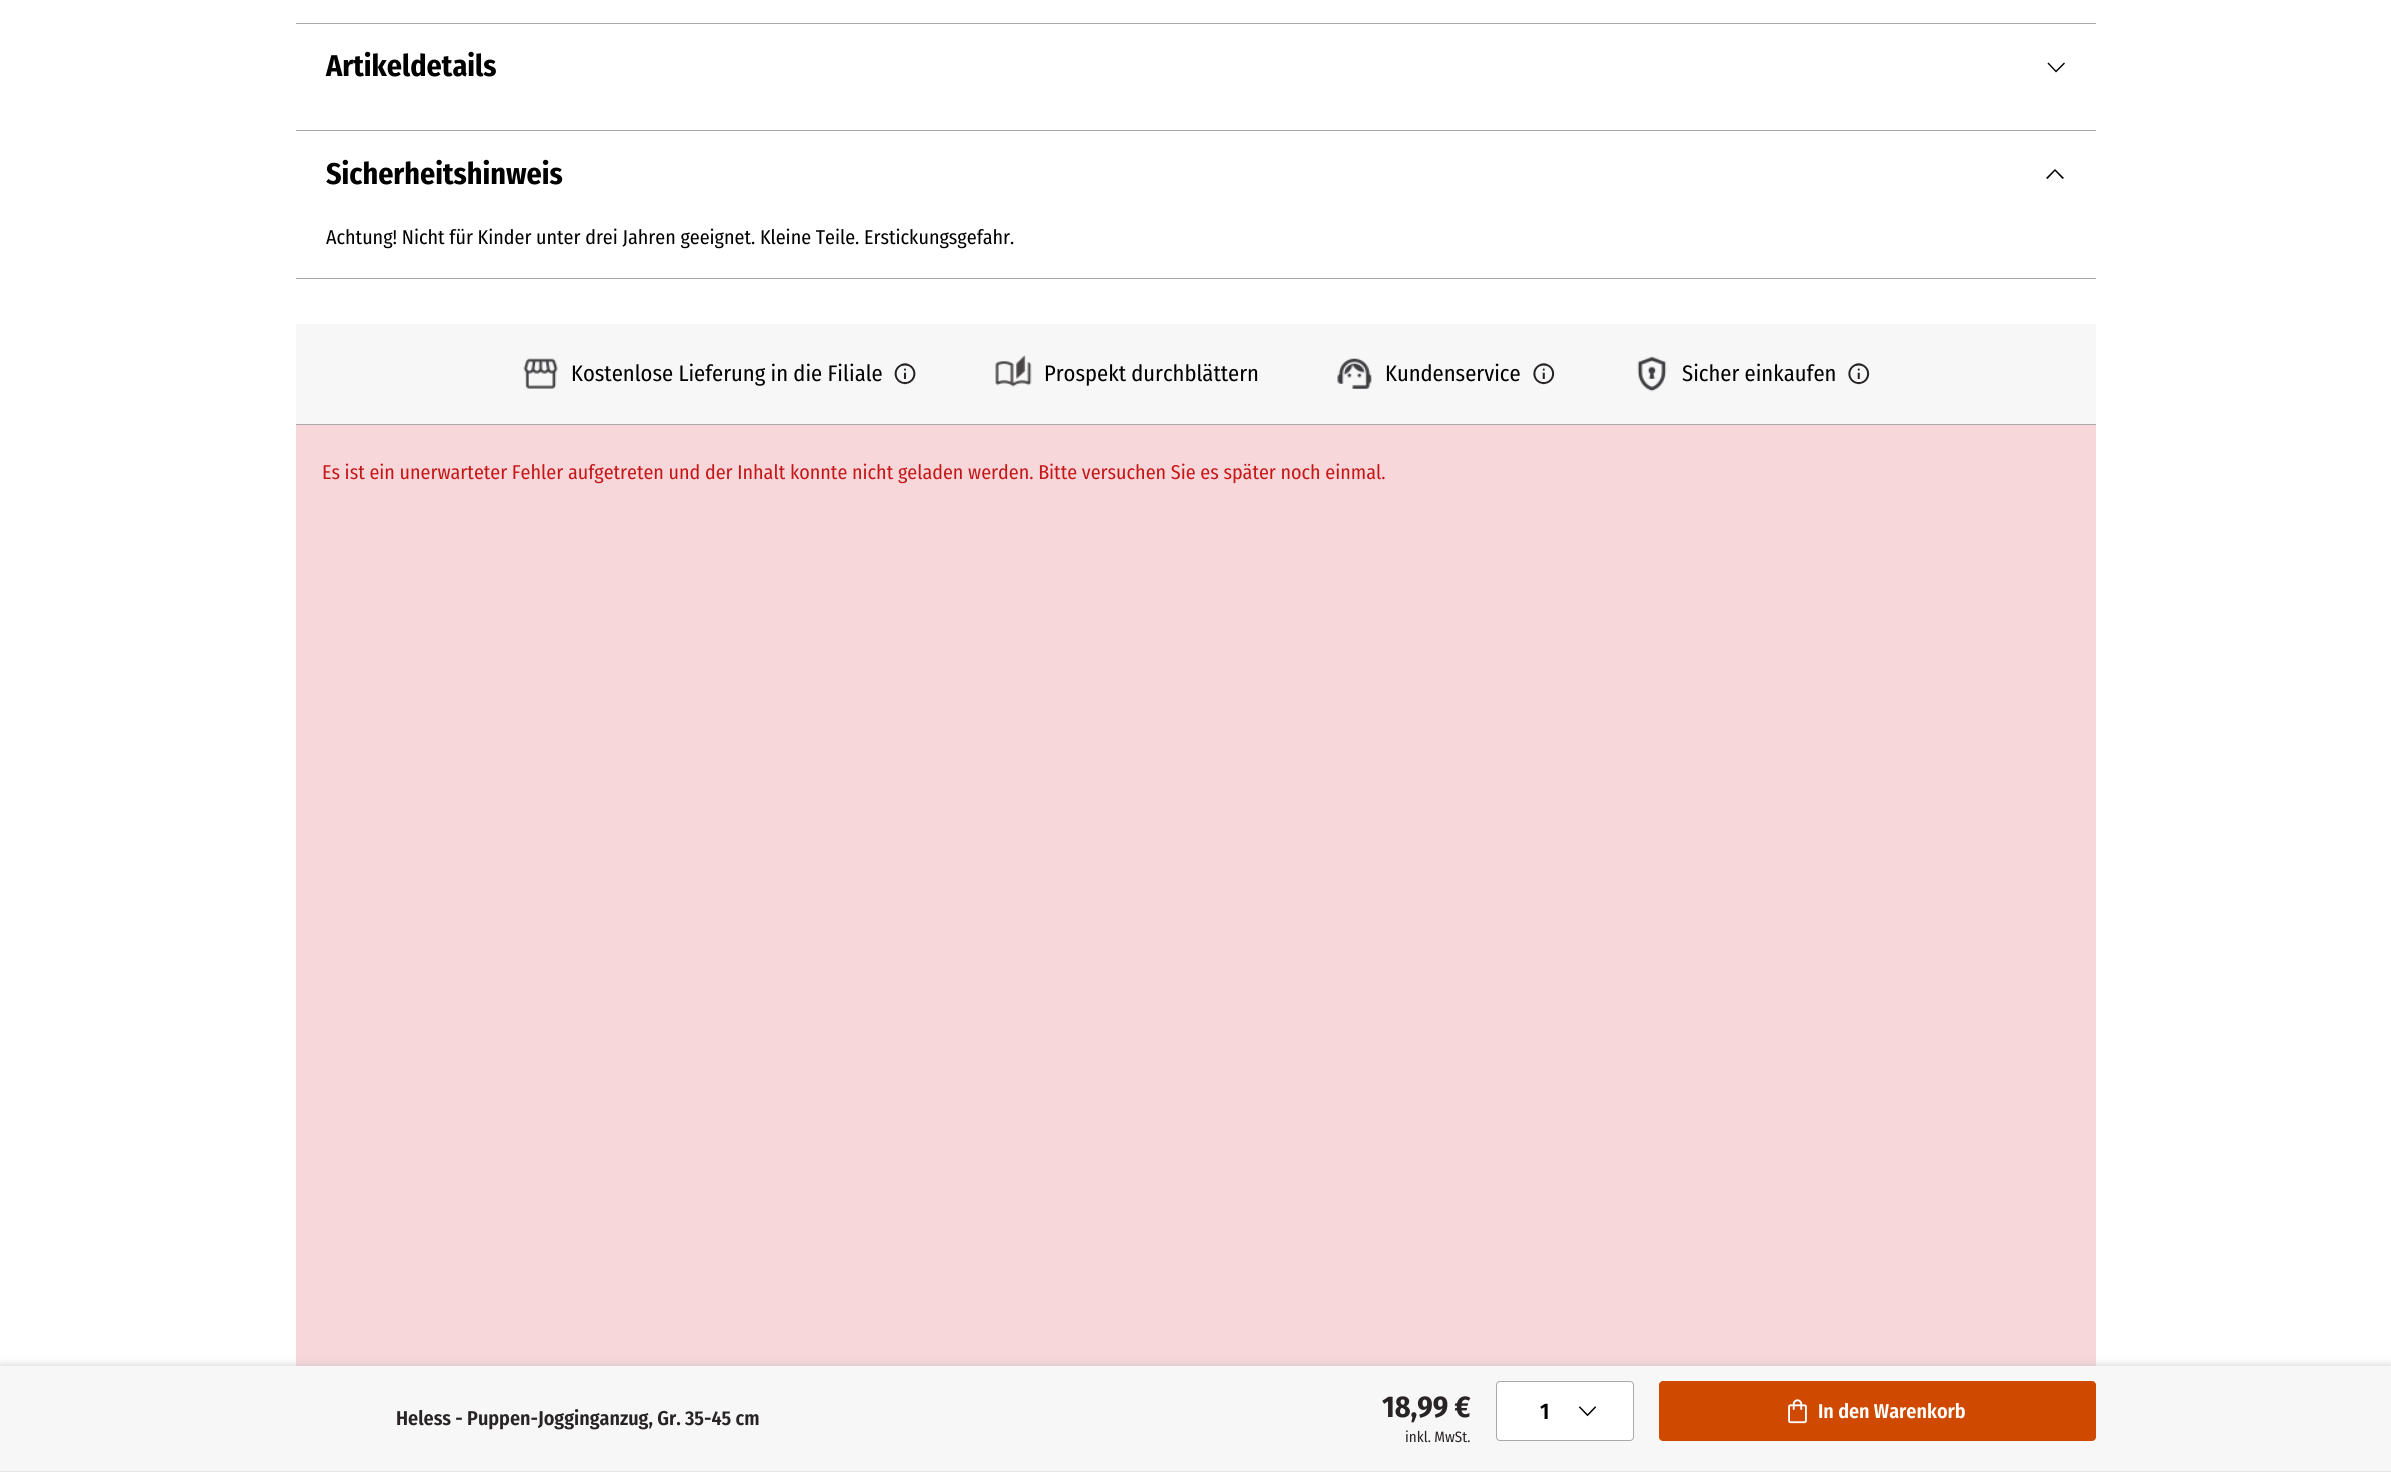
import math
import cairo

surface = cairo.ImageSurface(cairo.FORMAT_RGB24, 2391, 1472)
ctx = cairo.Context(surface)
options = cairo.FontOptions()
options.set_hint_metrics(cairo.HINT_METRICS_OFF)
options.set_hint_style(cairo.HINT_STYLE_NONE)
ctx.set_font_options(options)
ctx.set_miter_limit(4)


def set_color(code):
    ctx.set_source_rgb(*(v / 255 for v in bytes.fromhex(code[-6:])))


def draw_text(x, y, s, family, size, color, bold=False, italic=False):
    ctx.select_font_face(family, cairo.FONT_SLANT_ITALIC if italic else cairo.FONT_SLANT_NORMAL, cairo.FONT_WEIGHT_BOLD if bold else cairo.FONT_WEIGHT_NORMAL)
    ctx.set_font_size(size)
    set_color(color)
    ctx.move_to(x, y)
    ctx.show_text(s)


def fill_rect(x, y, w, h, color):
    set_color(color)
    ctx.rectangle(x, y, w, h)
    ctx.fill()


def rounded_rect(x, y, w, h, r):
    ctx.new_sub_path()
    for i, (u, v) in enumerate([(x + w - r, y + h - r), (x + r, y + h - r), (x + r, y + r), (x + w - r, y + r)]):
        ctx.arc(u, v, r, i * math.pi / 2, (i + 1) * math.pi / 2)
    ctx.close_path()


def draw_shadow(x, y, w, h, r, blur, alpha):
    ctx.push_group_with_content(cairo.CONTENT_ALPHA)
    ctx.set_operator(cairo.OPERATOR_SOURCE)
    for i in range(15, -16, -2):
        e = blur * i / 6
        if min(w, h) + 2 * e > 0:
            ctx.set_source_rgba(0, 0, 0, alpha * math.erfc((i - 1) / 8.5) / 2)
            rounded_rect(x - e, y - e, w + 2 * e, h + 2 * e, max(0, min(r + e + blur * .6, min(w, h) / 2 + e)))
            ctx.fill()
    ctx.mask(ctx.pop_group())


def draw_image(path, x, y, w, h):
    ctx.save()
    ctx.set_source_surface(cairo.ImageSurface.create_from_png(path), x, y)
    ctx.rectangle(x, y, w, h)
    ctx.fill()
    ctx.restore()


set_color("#ffffff")
ctx.paint()
fill_rect(296, 23, 1800, 1, "#a9a9a9")
draw_text(326, 76, "Artikeldetails", "Fira Sans Condensed", 30, "#000000", bold=True)
ctx.new_path()
ctx.move_to(2064, 62.5)
ctx.line_to(2065, 63.5)
ctx.line_to(2056, 72.5)
ctx.line_to(2047.5, 63.5)
ctx.line_to(2048.5, 62.5)
ctx.line_to(2056, 70.5)
ctx.close_path()
ctx.fill()
fill_rect(296, 130, 1800, 1, "#a9a9a9")
fill_rect(296, 278, 1800, 1, "#a9a9a9")
draw_text(326, 184, "Sicherheitshinweis", "Fira Sans Condensed", 30, "#000000", bold=True)
ctx.new_path()
ctx.move_to(2047.5, 179)
ctx.line_to(2046, 178)
ctx.line_to(2055, 169)
ctx.line_to(2064, 178)
ctx.line_to(2062.5, 179)
ctx.line_to(2055, 171)
ctx.close_path()
ctx.fill()
draw_text(326, 244, "Achtung! Nicht für Kinder unter drei Jahren geeignet. Kleine Teile. Erstickungsgefahr.", "Fira Sans Condensed", 20, "#000000")
fill_rect(296, 425, 1800, 941, "#f8d7da")
set_color("#bebebe")
draw_shadow(0, 1366, 2391, 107, 0, 5, 0.75)
fill_rect(0, 1366, 2391, 105, "#f7f7f7")
fill_rect(0, 1471, 2391, 1, "#e4e4e4")
draw_text(396, 1425, "Heless - Puppen-Jogginganzug, Gr. 35-45 cm", "Fira Sans Condensed SemiBold", 20, "#282426")
draw_text(1382, 1417, "18,99 €", "Fira Sans Condensed", 30, "#282426", bold=True)
draw_text(1405, 1442, "inkl. MwSt.", "Fira Sans Condensed", 15, "#282426")
set_color("#ffffff")
rounded_rect(1496.5, 1381.5, 137, 59, 3.5)
ctx.fill_preserve()
set_color("#a9a9a9")
ctx.set_line_width(1)
ctx.stroke()
draw_text(1540, 1419, "1", "Fira Sans Condensed SemiBold", 22.5, "#000000")
draw_image("assets/img1.png", 1578, 1406, 19, 11)
set_color("#cf4a00")
rounded_rect(1659, 1381, 437, 60, 4)
ctx.fill()
draw_image("assets/img2.png", 1788, 1399, 19, 25)
draw_text(1818, 1418, "In den Warenkorb", "Fira Sans Condensed SemiBold", 20, "#ffffff")
fill_rect(296, 324, 1800, 100, "#f7f7f7")
fill_rect(296, 424, 1800, 1, "#a9a9a9")
draw_image("assets/img3.png", 523, 358, 35, 31)
draw_text(571, 381, "Kostenlose Lieferung in die Filiale", "Fira Sans Condensed", 22.5, "#000000")
draw_image("assets/img4.png", 894, 363, 22, 22)
draw_image("assets/img5.png", 995, 355, 37, 32)
draw_text(1044, 381, "Prospekt durchblättern", "Fira Sans Condensed", 22.5, "#000000")
draw_image("assets/img6.png", 1337, 358, 35, 31)
draw_text(1385, 381, "Kundenservice", "Fira Sans Condensed", 22.5, "#000000")
draw_image("assets/img7.png", 1533, 363, 22, 22)
draw_image("assets/img8.png", 1637, 356, 30, 36)
draw_text(1682, 381, "Sicher einkaufen", "Fira Sans Condensed", 22.5, "#000000")
draw_image("assets/img7.png", 1848, 363, 22, 22)
draw_text(322, 479, "Es ist ein unerwarteter Fehler aufgetreten und der Inhalt konnte nicht geladen werden. Bitte versuchen Sie es später noch einmal.", "Fira Sans Condensed", 20, "#c51718")
surface.write_to_png("output.png")
